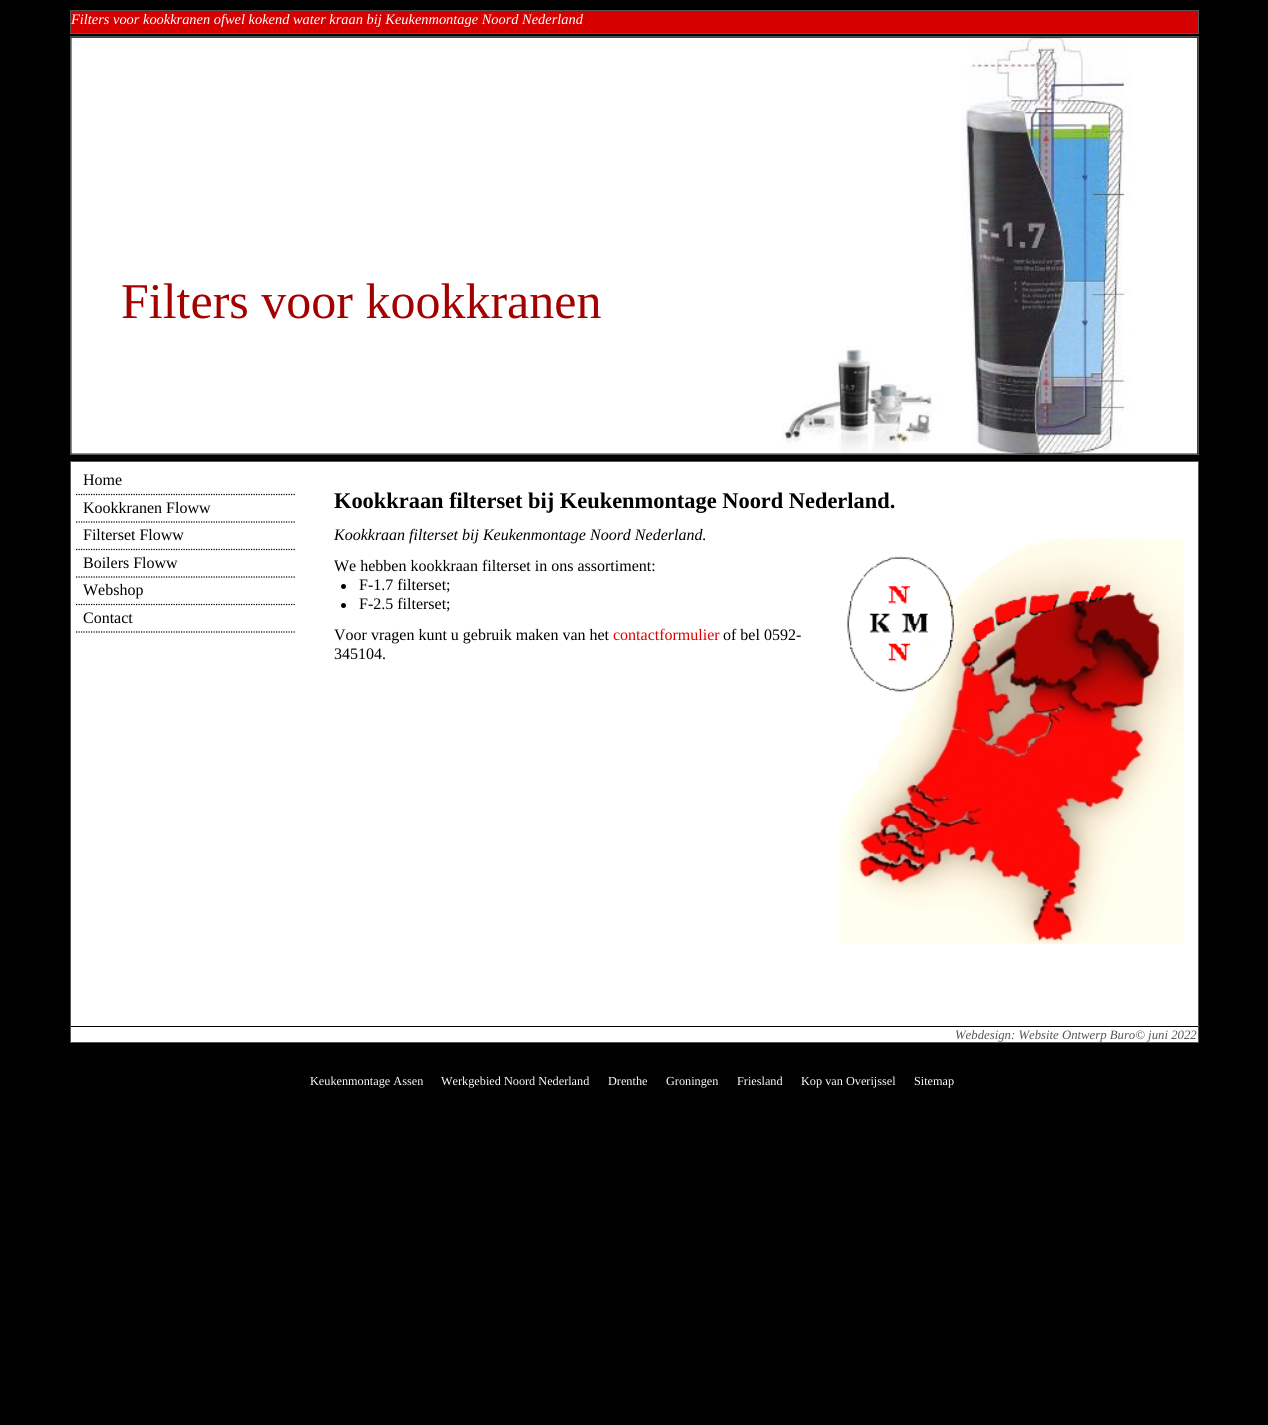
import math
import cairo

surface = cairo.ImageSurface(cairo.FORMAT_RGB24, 1268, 1425)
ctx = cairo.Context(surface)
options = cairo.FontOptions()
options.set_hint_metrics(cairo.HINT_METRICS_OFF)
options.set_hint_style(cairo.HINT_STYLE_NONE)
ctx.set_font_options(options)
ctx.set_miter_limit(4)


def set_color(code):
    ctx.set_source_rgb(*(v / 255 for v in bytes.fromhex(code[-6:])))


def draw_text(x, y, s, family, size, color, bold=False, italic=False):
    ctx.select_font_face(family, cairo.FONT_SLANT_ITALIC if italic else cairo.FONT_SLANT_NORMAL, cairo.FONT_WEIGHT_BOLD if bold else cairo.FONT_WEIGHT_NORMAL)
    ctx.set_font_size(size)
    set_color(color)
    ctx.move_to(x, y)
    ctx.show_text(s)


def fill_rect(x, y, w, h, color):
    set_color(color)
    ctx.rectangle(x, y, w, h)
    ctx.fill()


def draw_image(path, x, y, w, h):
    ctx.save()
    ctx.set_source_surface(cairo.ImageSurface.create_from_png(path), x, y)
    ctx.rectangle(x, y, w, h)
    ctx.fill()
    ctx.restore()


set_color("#000000")
ctx.paint()
set_color("#d70000")
ctx.rectangle(70.5, 10.5, 1128, 23)
ctx.fill_preserve()
set_color("#555555")
ctx.set_line_width(1)
ctx.stroke()
draw_text(71, 24, "Filters voor kookkranen ofwel kokend water kraan bij Keukenmontage Noord Nederland", "Liberation Serif", 14.4, "#ffffff", italic=True)
ctx.rectangle(70.5, 36.5, 1128, 418)
set_color("#555555")
ctx.stroke()
draw_image("assets/img1.png", 71, 37, 1127, 417)
draw_text(121, 318, "Filters voor kookkranen", "Liberation Serif", 50, "#a40000")
set_color("#ffffff")
ctx.rectangle(70.5, 461.5, 1128, 581)
ctx.fill_preserve()
set_color("#555555")
ctx.stroke()
ctx.new_path()
ctx.move_to(76, 494.5)
ctx.line_to(295, 494.5)
set_color("#000000")
ctx.set_line_width(1.2)
ctx.set_dash([1.25, 1.25])
ctx.stroke()
draw_text(83, 485, "Home", "Liberation Serif", 16, "#000000")
ctx.new_path()
ctx.move_to(76, 522)
ctx.line_to(295, 522)
ctx.stroke()
draw_text(83, 513, "Kookkranen Floww", "Liberation Serif", 16, "#000000")
ctx.new_path()
ctx.move_to(76, 549.5)
ctx.line_to(295, 549.5)
ctx.stroke()
draw_text(83, 540, "Filterset Floww", "Liberation Serif", 16, "#000000")
ctx.new_path()
ctx.move_to(76, 577)
ctx.line_to(295, 577)
ctx.stroke()
draw_text(83, 568, "Boilers Floww", "Liberation Serif", 16, "#000000")
ctx.new_path()
ctx.move_to(76, 604.5)
ctx.line_to(295, 604.5)
ctx.stroke()
draw_text(83, 595, "Webshop", "Liberation Serif", 16, "#000000")
ctx.new_path()
ctx.move_to(76, 632)
ctx.line_to(295, 632)
ctx.stroke()
draw_text(83, 623, "Contact", "Liberation Serif", 16, "#000000")
draw_text(334, 508, "Kookkraan filterset bij Keukenmontage Noord Nederland.", "Liberation Serif", 22.4, "#000000", bold=True)
draw_text(334, 540, "Kookkraan filterset bij Keukenmontage Noord Nederland.", "Liberation Serif", 16, "#000000", italic=True)
draw_text(334, 571, "We hebben kookkraan filterset in ons assortiment:", "Liberation Serif", 16, "#000000")
ctx.new_path()
ctx.arc(343.5, 586.5, 2.5, 0, 2 * math.pi)
ctx.fill()
draw_text(359, 590, "F-1.7 filterset;", "Liberation Serif", 16, "#000000")
ctx.new_path()
ctx.arc(343.5, 605.5, 2.5, 0, 2 * math.pi)
ctx.fill()
draw_text(359, 609, "F-2.5 filterset;", "Liberation Serif", 16, "#000000")
draw_image("assets/img2.png", 840, 538, 344, 406)
draw_text(334, 640, "Voor vragen kunt u gebruik maken van het", "Liberation Serif", 16, "#000000")
draw_text(613, 640, "contactformulier", "Liberation Serif", 16, "#df0000")
draw_text(723, 640, "of bel 0592-", "Liberation Serif", 16, "#000000")
draw_text(334, 659, "345104.", "Liberation Serif", 16, "#000000")
fill_rect(71, 1026, 1127, 1, "#000000")
draw_text(955, 1039, "Webdesign: Website Ontwerp Buro© juni 2022", "Liberation Serif", 12.75, "#555555", italic=True)
draw_text(310, 1085, "Keukenmontage Assen", "Liberation Serif", 12.25, "#ffffff")
draw_text(441, 1085, "Werkgebied Noord Nederland", "Liberation Serif", 12.25, "#ffffff")
draw_text(608, 1085, "Drenthe", "Liberation Serif", 12.25, "#ffffff")
draw_text(666, 1085, "Groningen", "Liberation Serif", 12.25, "#ffffff")
draw_text(737, 1085, "Friesland", "Liberation Serif", 12.25, "#ffffff")
draw_text(801, 1085, "Kop van Overijssel", "Liberation Serif", 12.25, "#ffffff")
draw_text(914, 1085, "Sitemap", "Liberation Serif", 12.25, "#ffffff")
surface.write_to_png("output.png")
